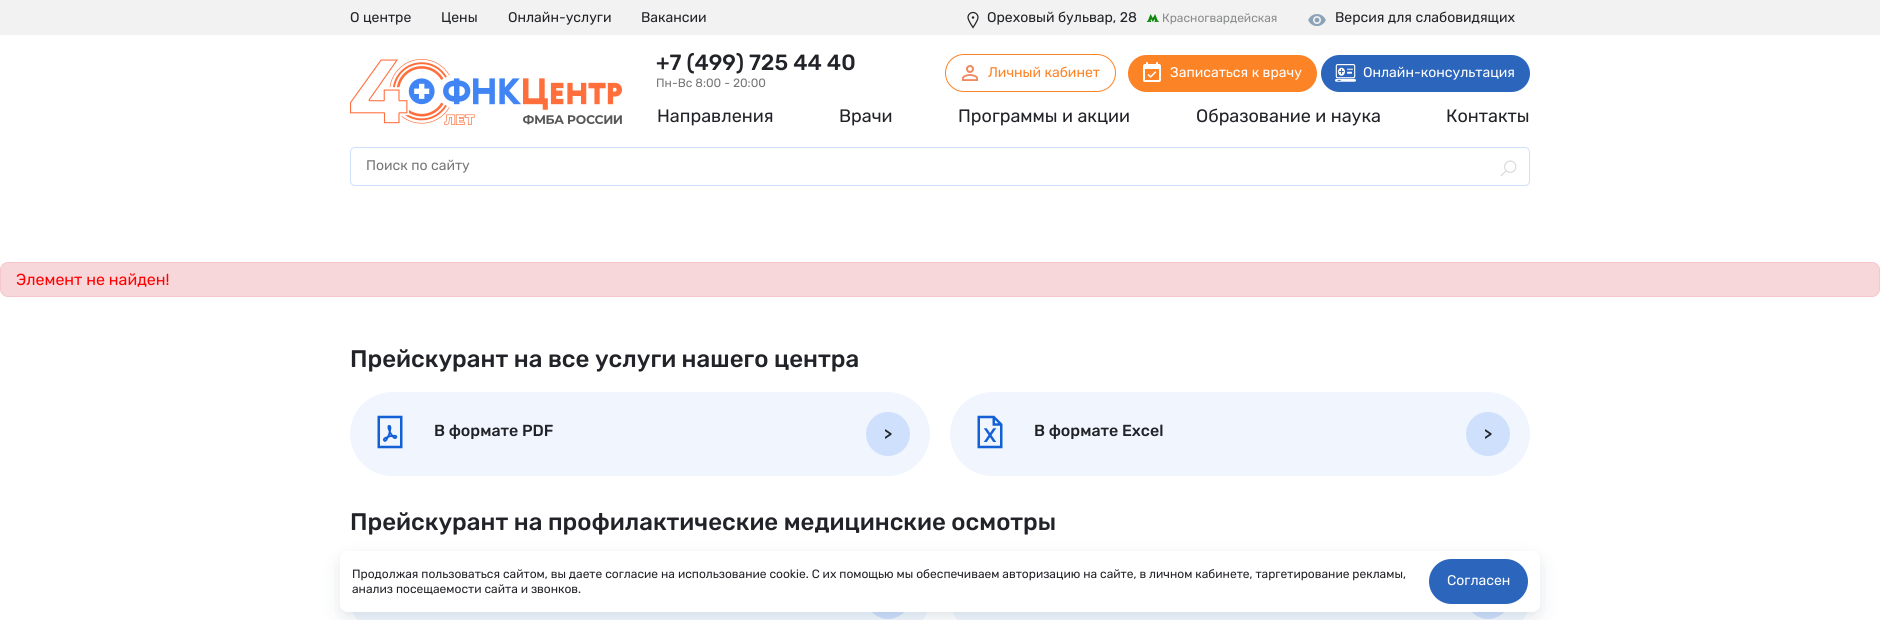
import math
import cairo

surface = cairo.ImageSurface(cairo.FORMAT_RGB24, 1880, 620)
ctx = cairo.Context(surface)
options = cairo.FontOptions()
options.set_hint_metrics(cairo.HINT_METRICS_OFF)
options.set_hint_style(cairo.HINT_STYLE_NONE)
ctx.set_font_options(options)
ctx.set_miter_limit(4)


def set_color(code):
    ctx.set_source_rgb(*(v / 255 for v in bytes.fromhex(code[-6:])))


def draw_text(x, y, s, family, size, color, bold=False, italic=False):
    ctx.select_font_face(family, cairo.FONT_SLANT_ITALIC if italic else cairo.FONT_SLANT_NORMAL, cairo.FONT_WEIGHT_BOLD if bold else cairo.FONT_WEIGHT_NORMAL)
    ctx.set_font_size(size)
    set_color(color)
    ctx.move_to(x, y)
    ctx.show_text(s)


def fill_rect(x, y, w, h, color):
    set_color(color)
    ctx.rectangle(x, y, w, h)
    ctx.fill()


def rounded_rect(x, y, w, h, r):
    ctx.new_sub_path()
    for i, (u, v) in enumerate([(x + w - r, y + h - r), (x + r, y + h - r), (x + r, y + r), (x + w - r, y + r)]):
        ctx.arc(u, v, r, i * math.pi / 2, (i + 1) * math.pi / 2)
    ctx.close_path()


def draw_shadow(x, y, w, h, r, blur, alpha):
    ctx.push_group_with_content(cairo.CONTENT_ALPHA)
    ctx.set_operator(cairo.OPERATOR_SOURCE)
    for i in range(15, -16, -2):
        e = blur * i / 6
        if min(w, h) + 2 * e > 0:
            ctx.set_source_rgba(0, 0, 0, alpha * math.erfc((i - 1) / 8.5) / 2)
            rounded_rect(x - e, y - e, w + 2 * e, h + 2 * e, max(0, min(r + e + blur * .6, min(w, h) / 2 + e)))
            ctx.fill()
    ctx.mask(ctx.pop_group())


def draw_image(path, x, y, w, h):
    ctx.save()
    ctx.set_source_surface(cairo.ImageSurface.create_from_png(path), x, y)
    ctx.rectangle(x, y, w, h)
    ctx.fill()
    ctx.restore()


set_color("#ffffff")
ctx.paint()
fill_rect(0, 0, 1880, 35, "#f2f2f2")
draw_text(350, 22, "О центре", "Rubik", 14, "#222328")
draw_text(441, 22, "Цены", "Rubik", 14, "#222328")
draw_text(508, 22, "Онлайн-услуги", "Rubik", 14, "#222328")
draw_text(641, 22, "Вакансии", "Rubik", 14, "#222328")
draw_image("assets/img1.png", 967, 11, 12, 18)
draw_text(987, 22, "Ореховый бульвар, 28", "Rubik", 14, "#222328")
draw_image("assets/img2.png", 1147, 14, 12, 8)
draw_text(1162, 22, "Красногвардейская", "Rubik", 12, "#8a8b8d")
draw_image("assets/img3.png", 1308, 14, 18, 12)
draw_text(1335, 22, "Версия для слабовидящих", "Rubik", 14, "#222328")
draw_image("assets/img4.png", 350, 59, 272, 67)
draw_text(656, 70, "+7 (499) 725 44 40", "Rubik Medium", 22, "#222328")
draw_text(656, 87, "Пн-Вс 8:00 - 20:00", "Rubik", 12, "#777777")
rounded_rect(945.5, 54.5, 170, 37, 18.5)
set_color("#fd8327")
ctx.set_line_width(1)
ctx.stroke()
draw_image("assets/img5.png", 962, 65, 16, 16)
draw_text(988, 77, "Личный кабинет", "Rubik", 14, "#fd8327")
rounded_rect(1128, 55, 189, 37, 18.5)
ctx.fill()
draw_image("assets/img6.png", 1143, 62, 18, 20)
draw_text(1170, 77, "Записаться к врачу", "Rubik", 14, "#ffffff")
set_color("#2c66bc")
rounded_rect(1321, 55, 209, 37, 18.5)
ctx.fill()
draw_image("assets/img7.png", 1335, 64, 21, 18)
draw_text(1363, 77, "Онлайн-консультация", "Rubik", 14, "#ffffff")
draw_text(657, 122, "Направления", "Rubik", 18, "#222328")
draw_text(839, 122, "Врачи", "Rubik", 18, "#222328")
draw_text(958, 122, "Программы и акции", "Rubik", 18, "#222328")
draw_text(1196, 122, "Образование и наука", "Rubik", 18, "#222328")
draw_text(1446, 122, "Контакты", "Rubik", 18, "#222328")
rounded_rect(350.5, 147.5, 1179, 38, 4.5)
set_color("#cfe0fc")
ctx.stroke()
draw_text(366, 170, "Поиск по сайту", "Rubik", 14, "#777777")
draw_image("assets/img8.png", 1500, 160, 17, 17)
set_color("#f8d7da")
rounded_rect(0.5, 262.5, 1879, 34, 7.5)
ctx.fill_preserve()
set_color("#f5c6cb")
ctx.stroke()
draw_text(16, 285, "Элемент не найден!", "Rubik", 16, "#ff0000")
draw_text(350, 367, "Прейскурант на все услуги нашего центра", "Rubik Medium", 24, "#222328")
set_color("#f1f6fe")
rounded_rect(350, 392, 580, 84, 42)
ctx.fill()
draw_image("assets/img9.png", 377, 415, 26, 34)
draw_text(434, 436, "В формате PDF", "Rubik Medium", 16, "#222328")
set_color("#cfe0fc")
ctx.new_path()
ctx.arc(888, 434, 22, 0, 2 * math.pi)
ctx.fill()
draw_text(884, 439, ">", "Rubik Medium", 16, "#222328")
set_color("#f1f6fe")
rounded_rect(950, 392, 580, 84, 42)
ctx.fill()
draw_image("assets/img10.png", 977, 415, 26, 34)
draw_text(1034, 436, "В формате Excel", "Rubik Medium", 16, "#222328")
set_color("#cfe0fc")
ctx.new_path()
ctx.arc(1488, 434, 22, 0, 2 * math.pi)
ctx.fill()
draw_text(1484, 439, ">", "Rubik Medium", 16, "#222328")
draw_text(350, 530, "Прейскурант на профилактические медицинские осмотры", "Rubik Medium", 24, "#222328")
set_color("#f1f6fe")
rounded_rect(350, 555, 580, 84, 42)
ctx.fill()
set_color("#cfe0fc")
ctx.arc(888, 597, 22, 0, 2 * math.pi)
ctx.fill()
set_color("#f1f6fe")
rounded_rect(950, 555, 580, 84, 42)
ctx.fill()
set_color("#cfe0fc")
ctx.arc(1488, 597, 22, 0, 2 * math.pi)
ctx.fill()
set_color("#042345")
draw_shadow(340, 555, 1200, 61, 8, 5, 0.05)
draw_shadow(340, 560, 1200, 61, 8, 12.5, 0.07)
set_color("#ffffff")
rounded_rect(340, 551, 1200, 61, 8)
ctx.fill()
draw_text(352, 578, "Продолжая пользоваться сайтом, вы даете согласие на использование cookie. С их помощью мы обеспечиваем авторизацию на сайте, в личном кабинете, таргетирование рекламы,", "Rubik", 12, "#222328")
draw_text(352, 593, "анализ посещаемости сайта и звонков.", "Rubik", 12, "#222328")
set_color("#2c66bc")
rounded_rect(1429, 559, 99, 45, 22.5)
ctx.fill()
draw_text(1447, 585, "Согласен", "Rubik", 14, "#ffffff")
surface.write_to_png("output.png")
